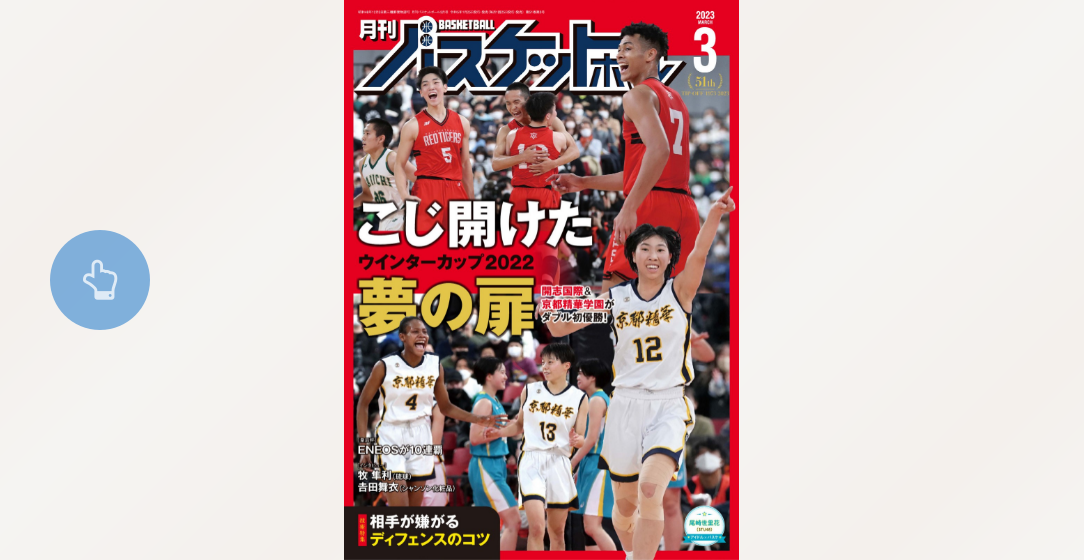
import math
import cairo

surface = cairo.ImageSurface(cairo.FORMAT_RGB24, 1084, 560)
ctx = cairo.Context(surface)
options = cairo.FontOptions()
options.set_hint_metrics(cairo.HINT_METRICS_OFF)
options.set_hint_style(cairo.HINT_STYLE_NONE)
ctx.set_font_options(options)
ctx.set_miter_limit(4)


def set_color(code):
    ctx.set_source_rgb(*(v / 255 for v in bytes.fromhex(code[-6:])))


def draw_image(path, x, y, w, h):
    ctx.save()
    ctx.set_source_surface(cairo.ImageSurface.create_from_png(path), x, y)
    ctx.rectangle(x, y, w, h)
    ctx.fill()
    ctx.restore()


set_color("#ffffff")
ctx.paint()
gradient = cairo.LinearGradient(953, 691, 104, -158)
gradient.add_color_stop_rgba(0, 0.961, 0.957, 0.949, 1)
gradient.add_color_stop_rgba(0.13, 0.957, 0.941, 0.925, 1)
gradient.add_color_stop_rgba(0.33, 0.961, 0.957, 0.949, 1)
gradient.add_color_stop_rgba(0.46, 0.957, 0.941, 0.925, 1)
gradient.add_color_stop_rgba(0.67, 0.961, 0.957, 0.949, 1)
gradient.add_color_stop_rgba(0.79, 0.957, 0.941, 0.925, 1)
gradient.add_color_stop_rgba(1, 0.961, 0.957, 0.949, 1)
ctx.set_source(gradient)
ctx.rectangle(0, 0, 1084, 560)
ctx.fill()
draw_image("assets/img1.png", 344, 0, 395, 189)
draw_image("assets/img2.png", 344, 188, 395, 186)
draw_image("assets/img3.png", 344, 373, 395, 187)
ctx.set_source_rgba(0.353, 0.6, 0.831, 0.75)
ctx.arc(100, 280, 50, 0, 2 * math.pi)
ctx.fill()
draw_image("assets/img4.png", 83, 259, 35, 41)
surface.write_to_png("output.png")
